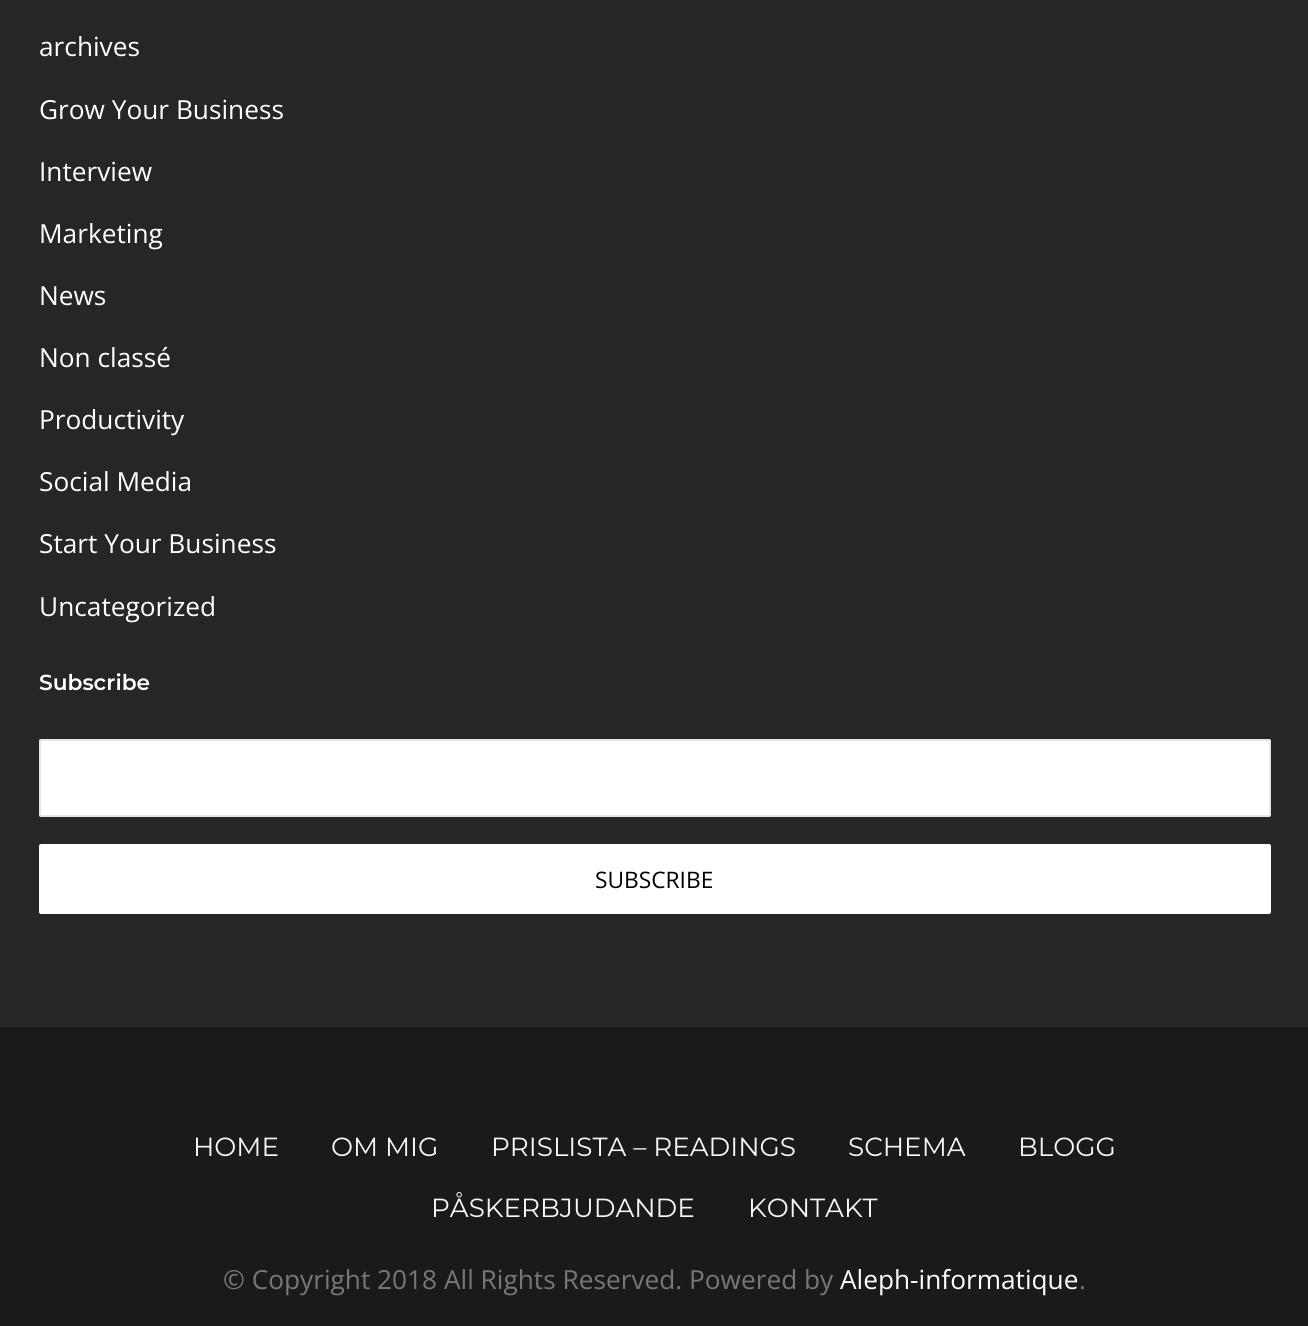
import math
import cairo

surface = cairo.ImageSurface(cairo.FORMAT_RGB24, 1308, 1326)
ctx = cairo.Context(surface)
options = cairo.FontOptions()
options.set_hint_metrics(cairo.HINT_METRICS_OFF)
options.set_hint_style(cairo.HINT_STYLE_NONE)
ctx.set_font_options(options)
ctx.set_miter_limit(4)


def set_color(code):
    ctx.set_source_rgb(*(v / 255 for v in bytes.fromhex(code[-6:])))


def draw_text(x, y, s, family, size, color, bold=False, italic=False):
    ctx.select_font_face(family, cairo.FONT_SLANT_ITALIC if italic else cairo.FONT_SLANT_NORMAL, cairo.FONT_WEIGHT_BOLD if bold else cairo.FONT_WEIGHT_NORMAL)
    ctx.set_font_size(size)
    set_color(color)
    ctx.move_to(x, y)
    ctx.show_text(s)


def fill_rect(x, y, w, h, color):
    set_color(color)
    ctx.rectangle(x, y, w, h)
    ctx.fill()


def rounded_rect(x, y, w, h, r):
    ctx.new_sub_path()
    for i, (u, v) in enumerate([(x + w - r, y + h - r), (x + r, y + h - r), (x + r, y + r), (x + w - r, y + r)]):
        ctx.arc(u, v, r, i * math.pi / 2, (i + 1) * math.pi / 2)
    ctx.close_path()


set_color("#262626")
ctx.paint()
draw_text(39, 56, "archives", "Open Sans", 26.25, "#ffffff")
draw_text(39, 119, "Grow Your Business", "Open Sans", 26.25, "#ffffff")
draw_text(39, 181, "Interview", "Open Sans", 26.25, "#ffffff")
draw_text(39, 243, "Marketing", "Open Sans", 26.25, "#ffffff")
draw_text(39, 305, "News", "Open Sans", 26.25, "#ffffff")
draw_text(39, 367, "Non classé", "Open Sans", 26.25, "#ffffff")
draw_text(39, 429, "Productivity", "Open Sans", 26.25, "#ffffff")
draw_text(39, 491, "Social Media", "Open Sans", 26.25, "#ffffff")
draw_text(39, 553, "Start Your Business", "Open Sans", 26.25, "#ffffff")
draw_text(39, 616, "Uncategorized", "Open Sans", 26.25, "#ffffff")
draw_text(39, 690, "Subscribe", "Montserrat SemiBold", 21.75, "#ffffff")
rounded_rect(39, 739, 1232, 78, 2)
ctx.fill()
rounded_rect(40, 740, 1230, 76, 1)
ctx.set_source_rgba(0.8, 0.8, 0.8, 0.5)
ctx.stroke()
set_color("#ffffff")
rounded_rect(40, 845, 1230, 68, 1)
ctx.fill_preserve()
ctx.stroke()
draw_text(595, 888, "SUBSCRIBE", "Open Sans", 22.75, "#000000")
fill_rect(0, 1027, 1308, 299, "#1a1a1a")
draw_text(193, 1156, "HOME", "Montserrat", 26.25, "#f5f7f8")
draw_text(331, 1156, "OM MIG", "Montserrat", 26.25, "#f5f7f8")
draw_text(491, 1156, "PRISLISTA – READINGS", "Montserrat", 26.25, "#f5f7f8")
draw_text(848, 1156, "SCHEMA", "Montserrat", 26.25, "#f5f7f8")
draw_text(1018, 1156, "BLOGG", "Montserrat", 26.25, "#f5f7f8")
draw_text(431, 1217, "PÅSKERBJUDANDE", "Montserrat", 26.25, "#f5f7f8")
draw_text(748, 1217, "KONTAKT", "Montserrat", 26.25, "#f5f7f8")
draw_text(223, 1289, "© Copyright 2018 All Rights Reserved. Powered by", "Open Sans", 26.25, "#777777")
draw_text(840, 1289, "Aleph-informatique", "Open Sans", 26.25, "#ffffff")
draw_text(1079, 1289, ".", "Open Sans", 26.25, "#777777")
surface.write_to_png("output.png")
